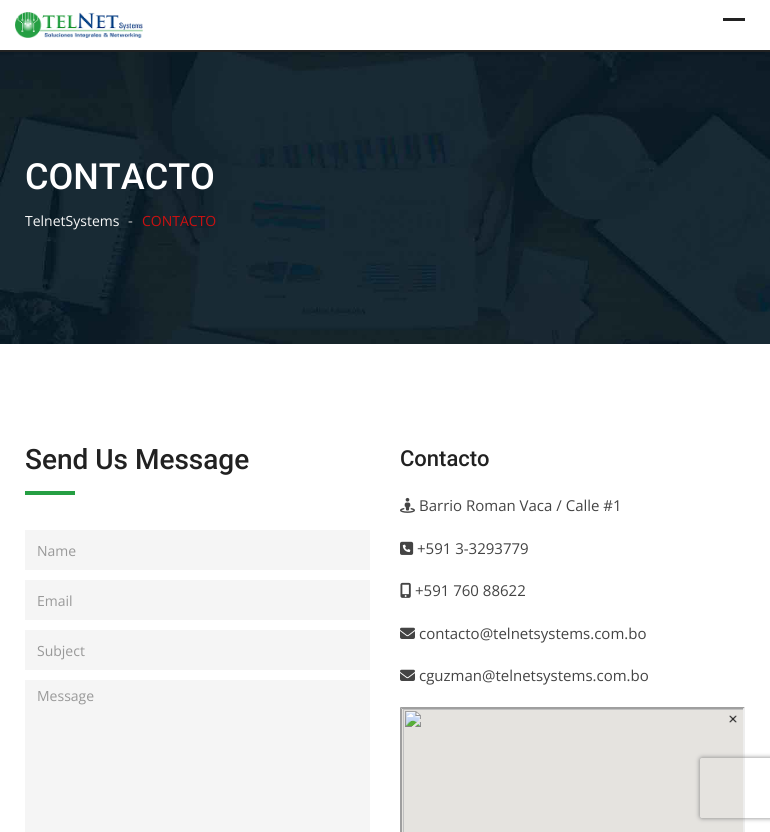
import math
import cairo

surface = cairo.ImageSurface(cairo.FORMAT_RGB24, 770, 832)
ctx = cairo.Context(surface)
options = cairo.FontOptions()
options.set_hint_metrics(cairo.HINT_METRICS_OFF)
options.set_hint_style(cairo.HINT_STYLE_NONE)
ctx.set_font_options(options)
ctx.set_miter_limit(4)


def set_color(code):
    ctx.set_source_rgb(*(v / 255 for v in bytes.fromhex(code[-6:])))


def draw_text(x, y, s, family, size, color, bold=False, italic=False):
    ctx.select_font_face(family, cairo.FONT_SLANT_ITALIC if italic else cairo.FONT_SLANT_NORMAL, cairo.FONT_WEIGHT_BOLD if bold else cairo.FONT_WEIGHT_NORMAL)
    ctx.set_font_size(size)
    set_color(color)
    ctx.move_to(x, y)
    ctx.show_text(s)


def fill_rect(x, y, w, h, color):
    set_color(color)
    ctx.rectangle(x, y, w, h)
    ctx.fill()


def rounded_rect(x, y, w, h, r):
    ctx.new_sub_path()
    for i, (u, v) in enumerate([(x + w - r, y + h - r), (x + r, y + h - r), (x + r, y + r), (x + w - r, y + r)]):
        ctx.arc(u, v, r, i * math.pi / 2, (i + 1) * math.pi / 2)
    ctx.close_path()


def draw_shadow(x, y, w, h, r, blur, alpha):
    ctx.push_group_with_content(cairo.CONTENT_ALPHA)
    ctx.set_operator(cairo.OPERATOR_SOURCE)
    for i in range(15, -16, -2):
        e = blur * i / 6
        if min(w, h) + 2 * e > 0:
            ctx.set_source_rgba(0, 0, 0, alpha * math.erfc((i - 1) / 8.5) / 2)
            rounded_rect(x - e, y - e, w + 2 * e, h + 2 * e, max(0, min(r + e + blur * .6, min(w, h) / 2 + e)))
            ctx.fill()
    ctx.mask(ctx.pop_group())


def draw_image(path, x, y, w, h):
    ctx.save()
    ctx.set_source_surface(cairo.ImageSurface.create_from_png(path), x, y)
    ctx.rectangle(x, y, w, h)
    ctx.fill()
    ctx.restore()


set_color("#ffffff")
ctx.paint()
fill_rect(0, 50, 770, 2, "#222222")
draw_image("assets/img1.png", 15, 12, 128, 26)
fill_rect(723, 18, 22, 3, "#222222")
draw_image("assets/img2.png", 0, 52, 770, 292)
draw_text(25, 189, "CONTACTO", "Roboto Medium", 36, "#ffffff")
draw_text(25, 226, "TelnetSystems", "Open Sans", 14, "#f8f8f8")
draw_text(128, 226, "-", "Open Sans", 15, "#c6c6c6")
draw_text(142, 226, "CONTACTO", "Open Sans", 14, "#cb1011")
draw_text(25, 469, "Send Us Message", "Roboto Medium", 28, "#212121")
fill_rect(25, 491, 50, 4, "#259f43")
fill_rect(25, 530, 345, 40, "#f5f5f5")
draw_text(37, 556, "Name", "Open Sans", 14, "#999999")
fill_rect(25, 580, 345, 40, "#f5f5f5")
draw_text(37, 606, "Email", "Open Sans", 14, "#999999")
fill_rect(25, 630, 345, 40, "#f5f5f5")
draw_text(37, 656, "Subject", "Open Sans", 14, "#999999")
fill_rect(25, 680, 345, 152, "#f5f5f5")
draw_text(37, 701, "Message", "Open Sans", 14, "#999999")
draw_text(400, 466, "Contacto", "Roboto Medium", 22, "#212121")
draw_image("assets/img3.png", 400, 497, 15, 16)
draw_text(419, 511, "Barrio Roman Vaca / Calle #1", "Open Sans", 15, "#444444")
draw_image("assets/img4.png", 400, 541, 14, 14)
draw_text(417, 554, "+591 3-3293779", "Open Sans", 15, "#444444")
draw_image("assets/img5.png", 400, 582, 11, 16)
draw_text(415, 596, "+591 760 88622", "Open Sans", 15, "#444444")
draw_image("assets/img6.png", 400, 627, 15, 12)
draw_text(419, 639, "contacto@telnetsystems.com.bo", "Open Sans", 15, "#444444")
draw_image("assets/img6.png", 400, 669, 15, 12)
draw_text(419, 681, "cguzman@telnetsystems.com.bo", "Open Sans", 15, "#444444")
set_color("#9f9f9f")
ctx.new_path()
ctx.move_to(400, 707)
ctx.line_to(745, 707)
ctx.line_to(743, 709)
ctx.line_to(402, 709)
ctx.close_path()
ctx.fill()
ctx.new_path()
ctx.move_to(400, 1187)
ctx.line_to(400, 707)
ctx.line_to(402, 709)
ctx.line_to(402, 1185)
ctx.close_path()
ctx.fill()
draw_image("assets/img7.png", 402, 709, 341, 123)
set_color("#eeeeee")
ctx.new_path()
ctx.move_to(745, 707)
ctx.line_to(745, 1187)
ctx.line_to(743, 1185)
ctx.line_to(743, 709)
ctx.close_path()
ctx.fill()
ctx.save()
ctx.set_fill_rule(cairo.FILL_RULE_EVEN_ODD)
ctx.new_path()
ctx.move_to(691, 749)
ctx.line_to(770, 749)
ctx.line_to(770, 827)
ctx.line_to(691, 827)
ctx.close_path()
ctx.move_to(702, 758)
ctx.line_to(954, 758)
ctx.curve_to(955, 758, 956, 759, 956, 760)
ctx.line_to(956, 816)
ctx.curve_to(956, 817, 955, 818, 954, 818)
ctx.line_to(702, 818)
ctx.curve_to(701, 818, 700, 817, 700, 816)
ctx.line_to(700, 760)
ctx.curve_to(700, 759, 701, 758, 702, 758)
ctx.close_path()
ctx.clip()
set_color("#808080")
draw_shadow(700, 758, 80, 60, 2, 2.5, 1)
ctx.restore()
surface.write_to_png("output.png")
